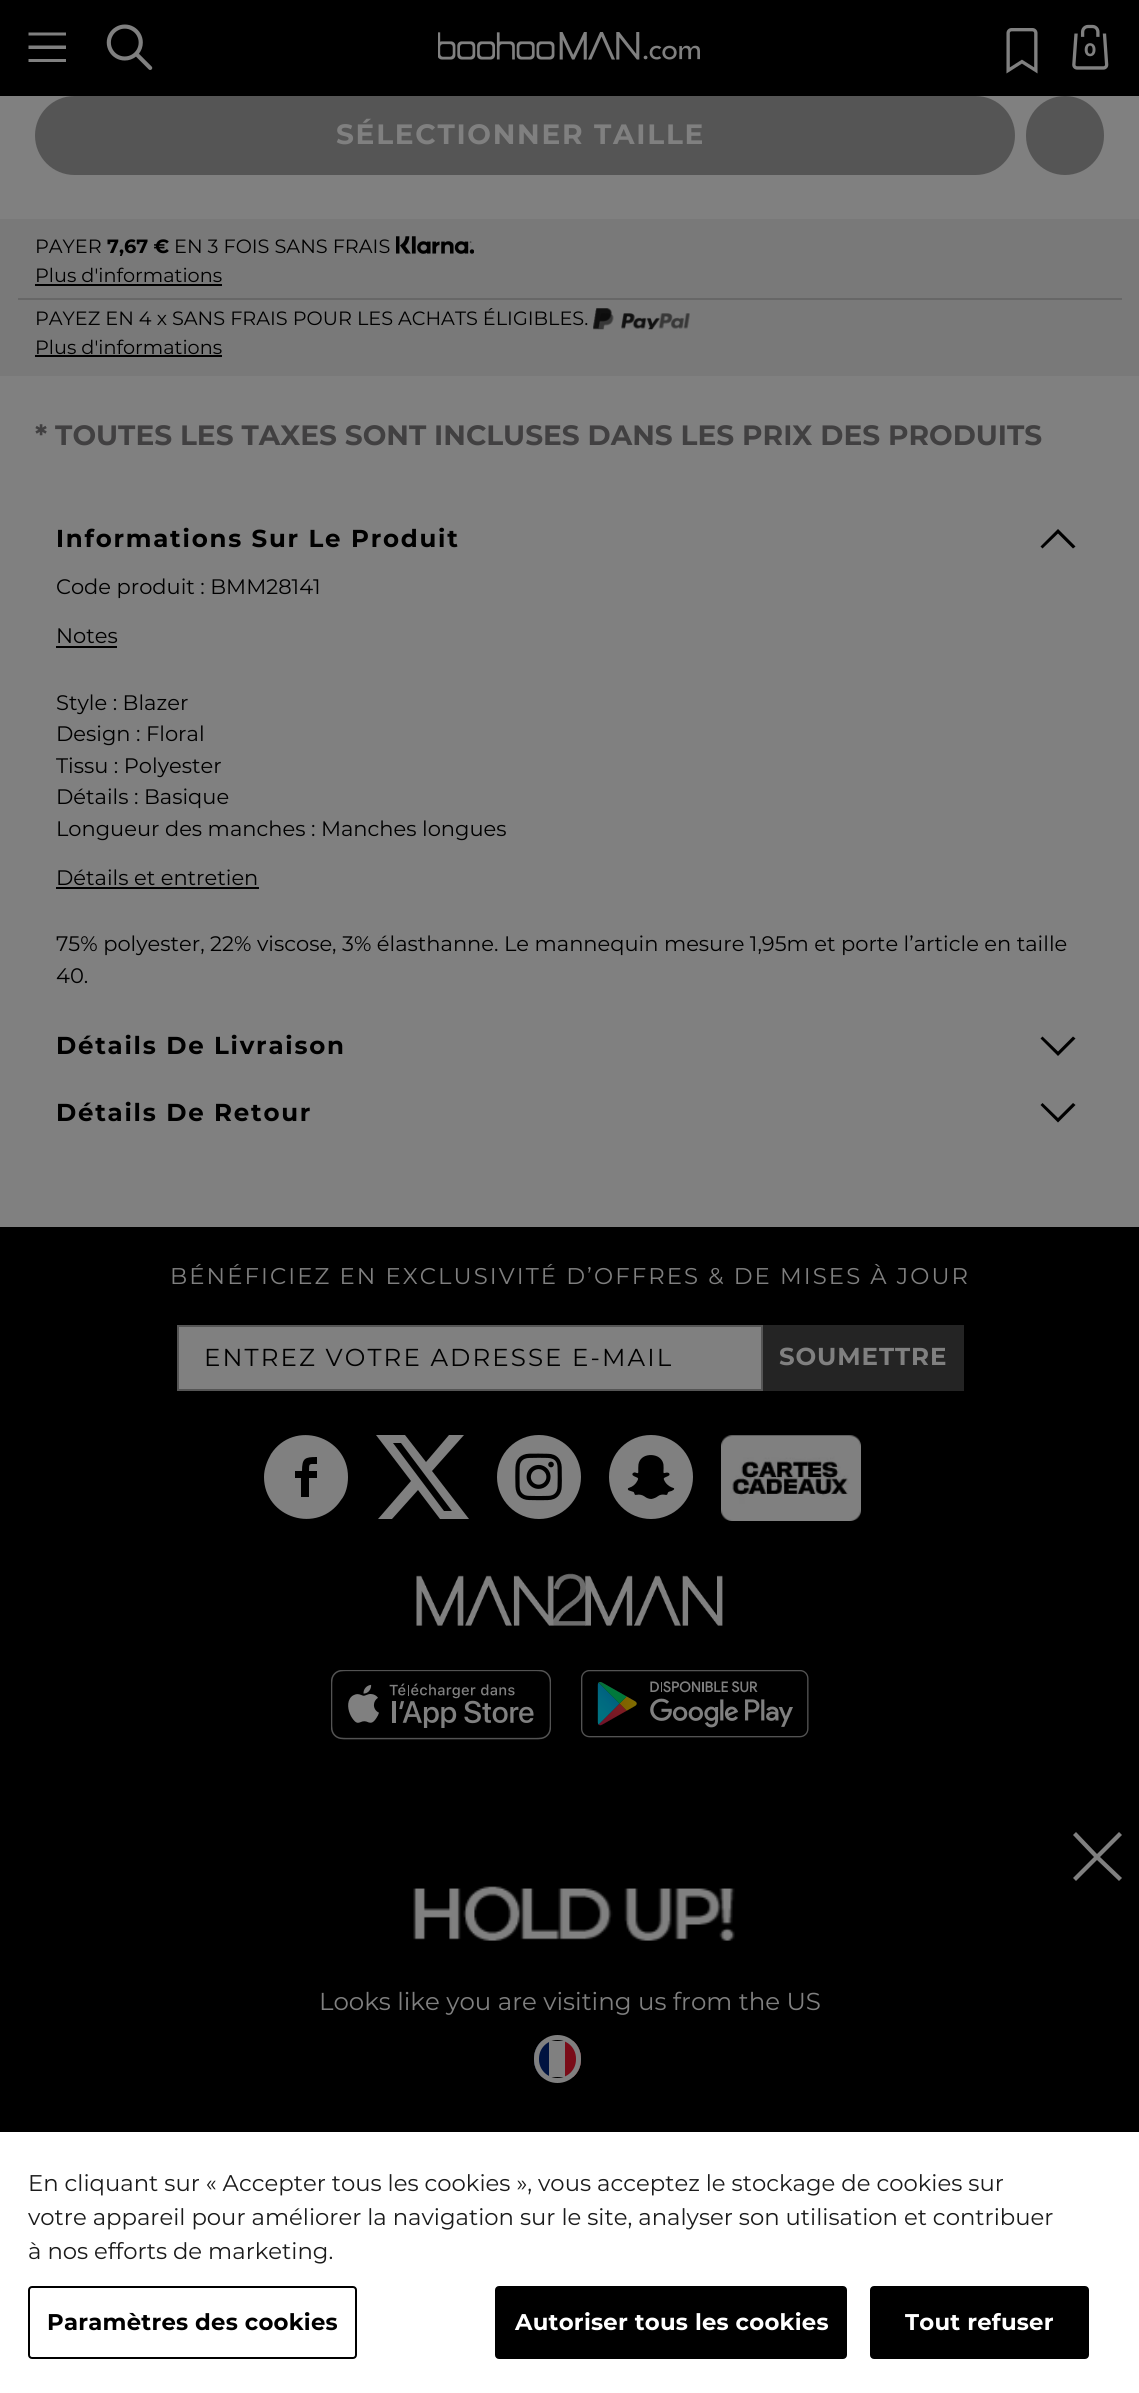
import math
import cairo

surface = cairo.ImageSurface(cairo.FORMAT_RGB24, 1139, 2393)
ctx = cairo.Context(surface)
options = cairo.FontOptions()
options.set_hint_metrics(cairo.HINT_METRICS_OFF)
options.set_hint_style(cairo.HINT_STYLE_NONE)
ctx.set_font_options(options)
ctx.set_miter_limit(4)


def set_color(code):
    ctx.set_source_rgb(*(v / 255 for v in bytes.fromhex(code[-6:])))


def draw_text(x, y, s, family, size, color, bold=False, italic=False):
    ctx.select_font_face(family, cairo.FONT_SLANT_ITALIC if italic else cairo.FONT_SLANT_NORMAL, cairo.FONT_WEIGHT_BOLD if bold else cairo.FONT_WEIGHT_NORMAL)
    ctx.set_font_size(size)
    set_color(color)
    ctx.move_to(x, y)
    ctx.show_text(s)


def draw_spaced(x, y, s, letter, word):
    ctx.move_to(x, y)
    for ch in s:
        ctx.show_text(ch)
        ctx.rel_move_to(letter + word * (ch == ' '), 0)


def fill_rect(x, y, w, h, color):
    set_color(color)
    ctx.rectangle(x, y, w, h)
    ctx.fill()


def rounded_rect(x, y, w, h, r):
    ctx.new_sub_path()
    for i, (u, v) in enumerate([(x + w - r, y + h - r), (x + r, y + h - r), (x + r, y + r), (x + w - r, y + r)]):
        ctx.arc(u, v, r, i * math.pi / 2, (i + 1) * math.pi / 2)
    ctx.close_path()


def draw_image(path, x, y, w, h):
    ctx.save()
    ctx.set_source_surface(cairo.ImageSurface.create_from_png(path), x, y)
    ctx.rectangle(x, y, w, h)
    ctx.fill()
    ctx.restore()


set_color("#808080")
ctx.paint()
fill_rect(0, 0, 1139, 96, "#000000")
set_color("#808080")
ctx.new_path()
ctx.move_to(28.5, 45.5)
ctx.line_to(66, 45.5)
ctx.line_to(66, 49)
ctx.line_to(28.5, 49)
ctx.close_path()
ctx.move_to(28.5, 32.5)
ctx.line_to(66, 32.5)
ctx.line_to(66, 35.5)
ctx.line_to(28.5, 35.5)
ctx.close_path()
ctx.move_to(28.5, 59)
ctx.line_to(66, 59)
ctx.line_to(66, 62)
ctx.line_to(28.5, 62)
ctx.close_path()
ctx.fill()
draw_image("assets/img1.png", 106, 24, 47, 46)
draw_image("assets/img2.png", 438, 32, 262, 28)
draw_image("assets/img3.png", 1006, 28, 32, 46)
draw_image("assets/img4.png", 1072, 24, 37, 46)
draw_text(1084, 56, "0", "Montserrat", 18, "#808080", bold=True)
set_color("#555555")
rounded_rect(35, 96, 980, 79, 39.5)
ctx.fill()
ctx.set_font_size(28)
set_color("#808080")
draw_spaced(336, 144, "SÉLECTIONNER TAILLE", 1.75, 0)
set_color("#555555")
rounded_rect(1027, 97, 76, 77, 38)
ctx.fill_preserve()
ctx.stroke()
fill_rect(0, 219, 1139, 157, "#797979")
draw_text(35, 253, "PAYER", "Montserrat", 19.25, "#000000")
draw_text(107, 253, "7,67 €", "Montserrat", 19.25, "#000000", bold=True)
draw_text(174, 253, "EN 3 FOIS SANS FRAIS", "Montserrat", 19.25, "#000000")
draw_image("assets/img5.png", 396, 236, 78, 18)
draw_text(35, 282, "Plus d'informations", "Montserrat", 19.25, "#000000")
fill_rect(35, 284, 187, 2, "#000000")
fill_rect(18, 298, 1104, 2, "#676767")
draw_text(35, 325, "PAYEZ EN 4 x SANS FRAIS POUR LES ACHATS ÉLIGIBLES.", "Montserrat", 19.25, "#000000")
draw_image("assets/img6.png", 593, 308, 97, 22)
draw_text(35, 354, "Plus d'informations", "Montserrat", 19.25, "#000000")
fill_rect(35, 355, 187, 2, "#000000")
draw_text(35, 445, "* TOUTES LES TAXES SONT INCLUSES DANS LES PRIX DES PRODUITS", "Montserrat", 28, "#414041", bold=True)
ctx.set_font_size(24.5)
set_color("#000000")
draw_spaced(56, 547, "Informations Sur Le Produit", 1.75, 0)
ctx.new_path()
ctx.move_to(1058, 529)
ctx.line_to(1075.5, 546.5)
ctx.line_to(1073, 548.5)
ctx.line_to(1058, 533.5)
ctx.line_to(1042.5, 548.5)
ctx.line_to(1040.5, 546.5)
ctx.close_path()
ctx.fill()
draw_text(56, 594, "Code produit : BMM28141", "Montserrat", 21, "#000000")
draw_text(56, 643, "Notes", "Montserrat", 21, "#000000")
fill_rect(56, 646, 61, 2, "#000000")
draw_text(56, 710, "Style : Blazer", "Montserrat", 21, "#000000")
draw_text(56, 741, "Design : Floral", "Montserrat", 21, "#000000")
draw_text(56, 773, "Tissu : Polyester", "Montserrat", 21, "#000000")
draw_text(56, 804, "Détails : Basique", "Montserrat", 21, "#000000")
draw_text(56, 836, "Longueur des manches : Manches longues", "Montserrat", 21, "#000000")
draw_text(56, 885, "Détails et entretien", "Montserrat", 21, "#000000")
fill_rect(56, 887, 203, 2, "#000000")
draw_text(56, 951, "75% polyester, 22% viscose, 3% élasthanne. Le mannequin mesure 1,95m et porte l’article en taille", "Montserrat", 21, "#000000")
draw_text(56, 983, "40.", "Montserrat", 21, "#000000")
ctx.select_font_face("Montserrat", cairo.FONT_SLANT_NORMAL, cairo.FONT_WEIGHT_BOLD)
ctx.set_font_size(24.5)
draw_spaced(56, 1054, "Détails De Livraison", 1.75, 0)
ctx.new_path()
ctx.move_to(1058, 1056)
ctx.line_to(1040.5, 1038.5)
ctx.line_to(1042.5, 1036.5)
ctx.line_to(1058, 1051.5)
ctx.line_to(1073, 1036.5)
ctx.line_to(1075.5, 1038.5)
ctx.close_path()
ctx.fill()
draw_spaced(56, 1121, "Détails De Retour", 1.75, 0)
ctx.new_path()
ctx.move_to(1058, 1122.5)
ctx.line_to(1040.5, 1105)
ctx.line_to(1042.5, 1103)
ctx.line_to(1058, 1118)
ctx.line_to(1073, 1103)
ctx.line_to(1075.5, 1105)
ctx.close_path()
ctx.fill()
fill_rect(0, 1227, 1139, 905, "#000000")
ctx.select_font_face("Montserrat")
ctx.set_font_size(22.75)
set_color("#808080")
draw_spaced(170, 1284, "BÉNÉFICIEZ EN EXCLUSIVITÉ D’OFFRES & DE MISES À JOUR", 2.1, 0)
ctx.rectangle(178, 1326, 584, 64)
ctx.fill_preserve()
set_color("#555555")
ctx.stroke()
ctx.set_font_size(24.5)
set_color("#000000")
draw_spaced(204, 1366, "ENTREZ VOTRE ADRESSE E-MAIL", 2.1, 0)
fill_rect(763, 1325, 201, 66, "#242424")
ctx.select_font_face("Montserrat", cairo.FONT_SLANT_NORMAL, cairo.FONT_WEIGHT_BOLD)
set_color("#808080")
draw_spaced(779, 1365, "SOUMETTRE", 0.9, 0)
ctx.new_path()
ctx.move_to(264, 1477)
ctx.curve_to(264, 1469, 267, 1461, 271, 1454)
ctx.curve_to(294, 1419, 348, 1436, 348, 1477)
ctx.curve_to(348, 1485, 346, 1494, 341, 1500)
ctx.curve_to(318, 1535, 264, 1518, 264, 1477)
ctx.close_path()
ctx.move_to(295, 1478)
ctx.line_to(301, 1478)
ctx.line_to(301, 1497)
ctx.line_to(309, 1497)
ctx.line_to(309, 1478)
ctx.line_to(317, 1478)
ctx.line_to(317, 1471)
ctx.line_to(309, 1471)
ctx.curve_to(309, 1463, 309, 1464, 317, 1464)
ctx.line_to(317, 1457)
ctx.curve_to(305, 1457, 302, 1458, 302, 1471)
ctx.line_to(295, 1471)
ctx.close_path()
ctx.fill()
ctx.new_path()
ctx.move_to(449, 1435)
ctx.line_to(464, 1435)
ctx.line_to(432, 1471)
ctx.line_to(469, 1519)
ctx.line_to(440, 1519)
ctx.line_to(418, 1490)
ctx.line_to(392, 1519)
ctx.line_to(378, 1519)
ctx.line_to(411, 1481)
ctx.line_to(376, 1435)
ctx.line_to(405, 1435)
ctx.line_to(426, 1462)
ctx.close_path()
ctx.move_to(444, 1511)
ctx.line_to(452, 1511)
ctx.line_to(401, 1443)
ctx.line_to(393, 1443)
ctx.close_path()
ctx.fill()
draw_image("assets/img7.png", 497, 1435, 84, 84)
draw_image("assets/img8.png", 609, 1435, 84, 84)
draw_image("assets/img9.png", 721, 1435, 140, 86)
draw_image("assets/img10.png", 416, 1573, 307, 53)
draw_image("assets/img11.png", 331, 1670, 220, 70)
draw_image("assets/img12.png", 581, 1670, 228, 68)
ctx.new_path()
ctx.move_to(1122, 1835)
ctx.line_to(1119, 1832)
ctx.line_to(1097, 1854)
ctx.line_to(1076, 1832)
ctx.line_to(1073, 1835)
ctx.line_to(1094, 1857)
ctx.line_to(1073, 1878)
ctx.line_to(1076, 1881)
ctx.line_to(1097, 1860)
ctx.line_to(1119, 1881)
ctx.line_to(1122, 1878)
ctx.line_to(1100, 1857)
ctx.close_path()
ctx.fill()
draw_image("assets/img13.png", 413, 1886, 322, 55)
draw_text(319, 2010, "Looks like you are visiting us from the US", "Montserrat", 24.5, "#808080")
ctx.save()
rounded_rect(534, 2035, 47, 48, 23.5)
ctx.clip()
fill_rect(534, 2041, 47, 36, "#808080")
fill_rect(534, 2041, 15, 36, "#001340")
fill_rect(565, 2041, 16, 36, "#7a0c18")
ctx.restore()
rounded_rect(536.5, 2037.5, 42, 43, 21)
ctx.set_line_width(5)
ctx.stroke()
fill_rect(0, 2132, 1139, 261, "#ffffff")
draw_text(28, 2191, "En cliquant sur « Accepter tous les cookies », vous acceptez le stockage de cookies sur", "Montserrat", 22.75, "#1b1b1b")
draw_text(28, 2225, "votre appareil pour améliorer la navigation sur le site, analyser son utilisation et contribuer", "Montserrat", 22.75, "#1b1b1b")
draw_text(28, 2259, "à nos efforts de marketing.", "Montserrat", 22.75, "#1b1b1b")
rounded_rect(29, 2287, 327, 71, 3)
set_color("#000000")
ctx.set_line_width(2)
ctx.stroke()
ctx.select_font_face("Montserrat", cairo.FONT_SLANT_NORMAL, cairo.FONT_WEIGHT_BOLD)
draw_spaced(47, 2330, "Paramètres des cookies", 0.25, 0)
rounded_rect(496, 2287, 350, 71, 3)
ctx.fill_preserve()
ctx.stroke()
set_color("#ffffff")
draw_spaced(515, 2330, "Autoriser tous les cookies", 0.25, 0)
set_color("#000000")
rounded_rect(871, 2287, 217, 71, 3)
ctx.fill_preserve()
ctx.stroke()
set_color("#ffffff")
draw_spaced(905, 2330, "Tout refuser", 0.25, 0)
surface.write_to_png("output.png")
